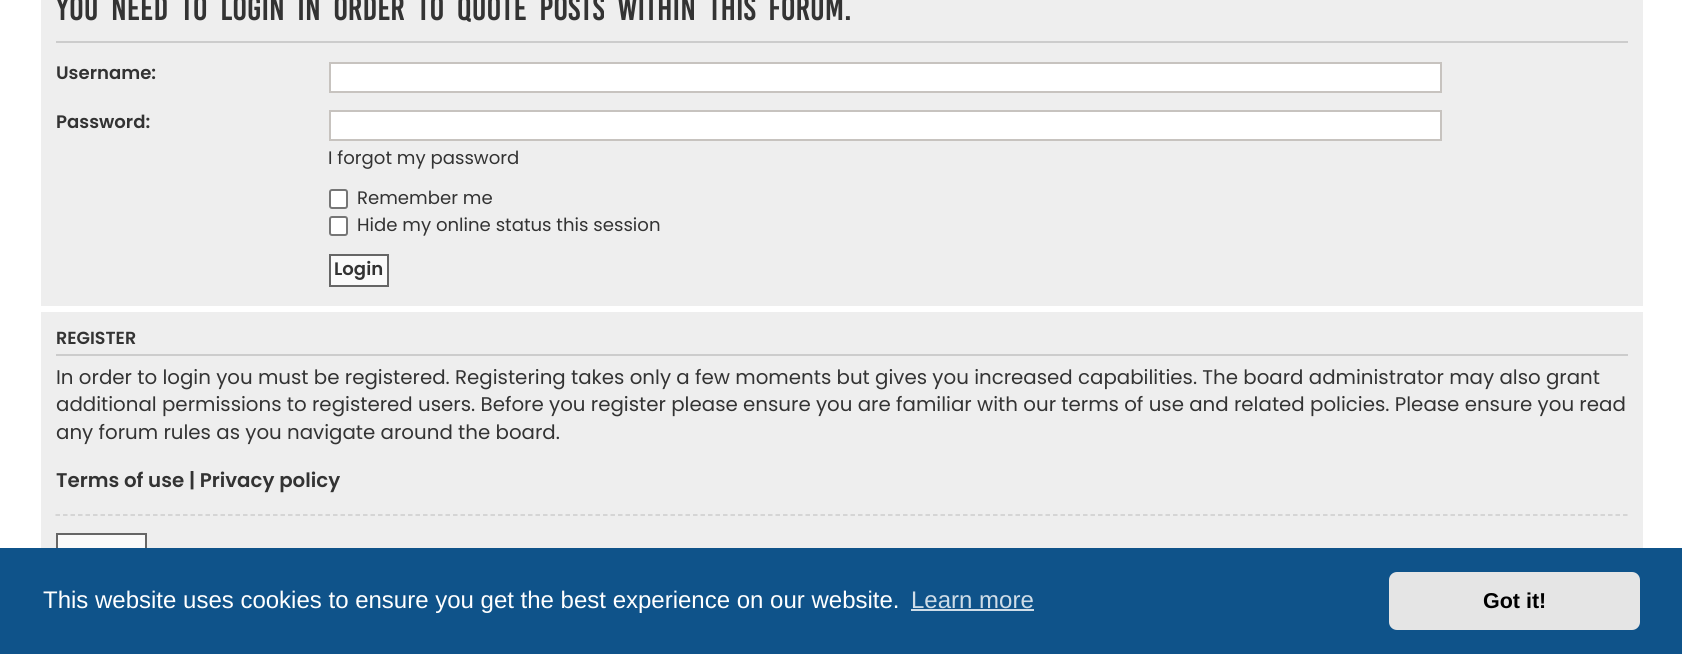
import math
import cairo

surface = cairo.ImageSurface(cairo.FORMAT_RGB24, 1682, 654)
ctx = cairo.Context(surface)
options = cairo.FontOptions()
options.set_hint_metrics(cairo.HINT_METRICS_OFF)
options.set_hint_style(cairo.HINT_STYLE_NONE)
ctx.set_font_options(options)
ctx.set_miter_limit(4)


def set_color(code):
    ctx.set_source_rgb(*(v / 255 for v in bytes.fromhex(code[-6:])))


def draw_text(x, y, s, family, size, color, bold=False, italic=False):
    ctx.select_font_face(family, cairo.FONT_SLANT_ITALIC if italic else cairo.FONT_SLANT_NORMAL, cairo.FONT_WEIGHT_BOLD if bold else cairo.FONT_WEIGHT_NORMAL)
    ctx.set_font_size(size)
    set_color(color)
    ctx.move_to(x, y)
    ctx.show_text(s)


def draw_spaced(x, y, s, letter, word):
    ctx.move_to(x, y)
    for ch in s:
        ctx.show_text(ch)
        ctx.rel_move_to(letter + word * (ch == ' '), 0)


def fill_rect(x, y, w, h, color):
    set_color(color)
    ctx.rectangle(x, y, w, h)
    ctx.fill()


def rounded_rect(x, y, w, h, r):
    ctx.new_sub_path()
    for i, (u, v) in enumerate([(x + w - r, y + h - r), (x + r, y + h - r), (x + r, y + r), (x + w - r, y + r)]):
        ctx.arc(u, v, r, i * math.pi / 2, (i + 1) * math.pi / 2)
    ctx.close_path()


set_color("#ffffff")
ctx.paint()
fill_rect(41, 0, 1602, 306, "#eeeeee")
fill_rect(56, 41, 1572, 2, "#cccccc")
ctx.select_font_face("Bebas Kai")
ctx.set_font_size(26.4)
set_color("#333333")
draw_spaced(56, 20, "You need to login in order to quote posts within this forum.", 0, 6)
draw_text(56, 79, "Username:", "Poppins SemiBold", 18.1, "#333333")
set_color("#ffffff")
ctx.rectangle(330, 63, 1111, 29)
ctx.fill_preserve()
set_color("#c7c3bf")
ctx.stroke()
draw_text(56, 128, "Password:", "Poppins SemiBold", 18.1, "#333333")
set_color("#ffffff")
ctx.rectangle(330, 111, 1111, 29)
ctx.fill_preserve()
set_color("#c7c3bf")
ctx.stroke()
draw_text(328, 164, "I forgot my password", "Poppins", 18.1, "#333333")
set_color("#ffffff")
rounded_rect(330, 190, 17, 18, 2)
ctx.fill_preserve()
set_color("#767676")
ctx.stroke()
draw_text(357, 204, "Remember me", "Poppins", 18.1, "#333333")
set_color("#ffffff")
rounded_rect(330, 217, 17, 18, 2)
ctx.fill_preserve()
set_color("#767676")
ctx.stroke()
draw_text(357, 231, "Hide my online status this session", "Poppins", 18.1, "#333333")
set_color("#fafafa")
ctx.rectangle(330, 255, 58, 31)
ctx.fill_preserve()
set_color("#666666")
ctx.stroke()
draw_text(334, 275, "Login", "Poppins SemiBold", 18.1, "#333333")
fill_rect(41, 312, 1602, 236, "#eeeeee")
fill_rect(56, 354, 1572, 2, "#cccccc")
draw_text(56, 344, "REGISTER", "Poppins SemiBold", 17.5, "#333333")
draw_text(56, 384, "In order to login you must be registered. Registering takes only a few moments but gives you increased capabilities. The board administrator may also grant", "Poppins", 19.8, "#333333")
draw_text(56, 411, "additional permissions to registered users. Before you register please ensure you are familiar with our terms of use and related policies. Please ensure you read", "Poppins", 19.8, "#333333")
draw_text(56, 439, "any forum rules as you navigate around the board.", "Poppins", 19.8, "#333333")
draw_text(56, 487, "Terms of use | Privacy policy", "Poppins SemiBold", 19.8, "#333333")
ctx.new_path()
ctx.move_to(55.5, 515)
ctx.line_to(1627.5, 515)
set_color("#cccccc")
ctx.set_line_width(1.5)
ctx.set_dash([4.5, 3])
ctx.stroke()
fill_rect(58, 535, 87, 13, "#fafafa")
ctx.rectangle(57, 534, 89, 31)
set_color("#666666")
ctx.set_line_width(2)
ctx.set_dash([])
ctx.stroke()
fill_rect(0, 548, 1682, 106, "#0f538a")
draw_text(43, 608, "This website uses cookies to ensure you get the best experience on our website.", "Liberation Sans", 24, "#ffffff")
draw_text(911, 608, "Learn more", "Liberation Sans", 24, "#cfdde8")
fill_rect(911, 609, 123, 2, "#cfdde8")
set_color("#e5e5e5")
rounded_rect(1389, 572, 251, 58, 8)
ctx.fill()
draw_text(1483, 608, "Got it!", "Liberation Sans", 21.5, "#000000", bold=True)
surface.write_to_png("output.png")
